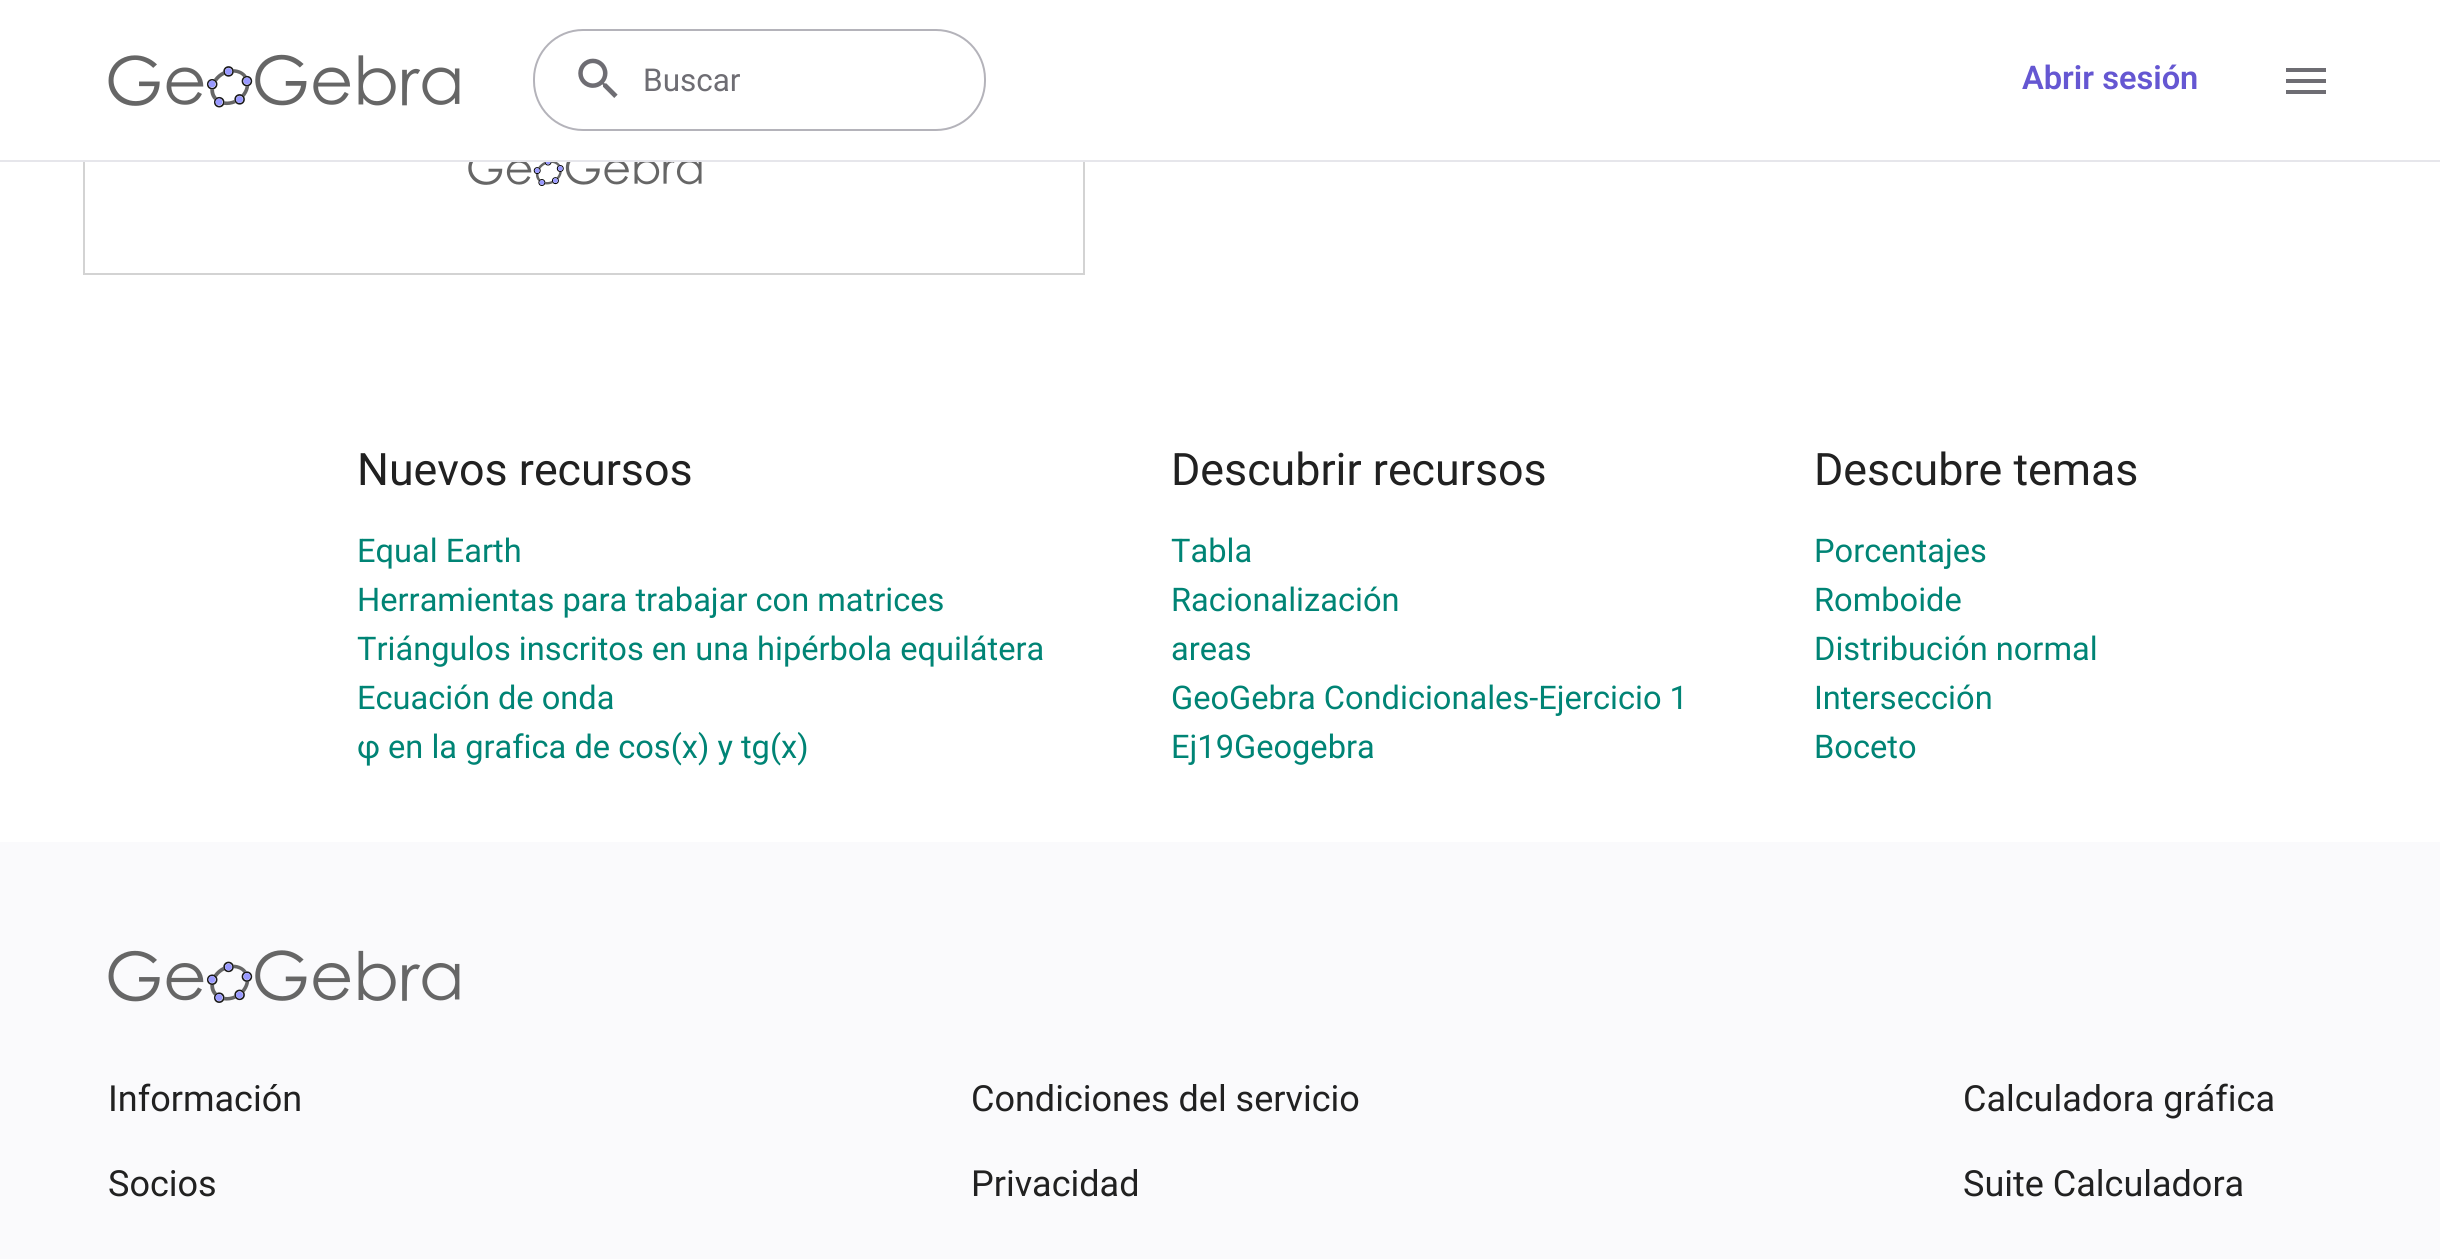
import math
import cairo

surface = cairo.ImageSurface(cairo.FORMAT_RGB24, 2440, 1259)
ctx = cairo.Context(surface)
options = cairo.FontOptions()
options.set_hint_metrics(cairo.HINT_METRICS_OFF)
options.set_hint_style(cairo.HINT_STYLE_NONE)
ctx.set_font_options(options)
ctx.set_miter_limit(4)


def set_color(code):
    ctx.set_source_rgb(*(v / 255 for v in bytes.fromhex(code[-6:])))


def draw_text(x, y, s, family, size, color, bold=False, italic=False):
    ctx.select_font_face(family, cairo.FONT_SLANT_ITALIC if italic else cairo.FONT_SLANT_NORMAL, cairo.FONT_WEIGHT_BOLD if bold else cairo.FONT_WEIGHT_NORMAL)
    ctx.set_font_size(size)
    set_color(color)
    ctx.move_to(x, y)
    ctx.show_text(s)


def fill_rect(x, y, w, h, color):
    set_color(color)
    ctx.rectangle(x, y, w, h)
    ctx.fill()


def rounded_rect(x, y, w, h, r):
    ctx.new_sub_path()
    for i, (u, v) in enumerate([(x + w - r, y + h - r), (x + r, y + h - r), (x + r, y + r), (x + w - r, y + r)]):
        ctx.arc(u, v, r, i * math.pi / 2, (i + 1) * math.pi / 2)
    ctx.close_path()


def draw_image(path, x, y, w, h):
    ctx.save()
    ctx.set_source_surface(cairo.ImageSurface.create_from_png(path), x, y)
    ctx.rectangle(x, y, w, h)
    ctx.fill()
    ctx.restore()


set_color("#ffffff")
ctx.paint()
draw_image("assets/img3.png", 468, 162, 234, 24)
ctx.rectangle(84, -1, 1000, 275)
set_color("#d3d3d3")
ctx.stroke()
fill_rect(83, 0, 1002, 160, "#ffffff")
fill_rect(0, 160, 2440, 2, "#e6e6eb")
draw_image("assets/img1.png", 108, 54, 352, 54)
rounded_rect(534, 30, 451, 100, 49)
set_color("#b4b3ba")
ctx.stroke()
draw_image("assets/img2.png", 578, 58, 40, 40)
draw_text(643, 91, "Buscar", "Roboto", 31.5, "#6e6d73")
draw_text(2022, 89, "Abrir sesión", "Roboto SemiBold", 32.6, "#6557d2")
set_color("#6e6d73")
ctx.new_path()
ctx.move_to(2286, 68)
ctx.line_to(2326, 68)
ctx.line_to(2326, 72)
ctx.line_to(2286, 72)
ctx.line_to(2286, 68)
ctx.move_to(2286, 79)
ctx.line_to(2326, 79)
ctx.line_to(2326, 83)
ctx.line_to(2286, 83)
ctx.line_to(2286, 79)
ctx.move_to(2286, 90)
ctx.line_to(2326, 90)
ctx.line_to(2326, 94)
ctx.line_to(2286, 94)
ctx.close_path()
ctx.fill()
draw_text(357, 485, "Nuevos recursos", "Roboto", 44.75, "#212121")
draw_text(357, 562, "Equal Earth", "Roboto", 32.6, "#008475")
draw_text(357, 611, "Herramientas para trabajar con matrices", "Roboto", 32.6, "#008475")
draw_text(357, 660, "Triángulos inscritos en una hipérbola equilátera", "Roboto", 32.6, "#008475")
draw_text(357, 709, "Ecuación de onda", "Roboto", 32.6, "#008475")
draw_text(357, 758, "φ en la grafica de cos(x) y tg(x)", "Roboto", 32.6, "#008475")
draw_text(1171, 485, "Descubrir recursos", "Roboto", 44.75, "#212121")
draw_text(1171, 562, "Tabla", "Roboto", 32.6, "#008475")
draw_text(1171, 611, "Racionalización", "Roboto", 32.6, "#008475")
draw_text(1171, 660, "areas", "Roboto", 32.6, "#008475")
draw_text(1171, 709, "GeoGebra Condicionales-Ejercicio 1", "Roboto", 32.6, "#008475")
draw_text(1171, 758, "Ej19Geogebra", "Roboto", 32.6, "#008475")
draw_text(1814, 485, "Descubre temas", "Roboto", 44.75, "#212121")
draw_text(1814, 562, "Porcentajes", "Roboto", 32.6, "#008475")
draw_text(1814, 611, "Romboide", "Roboto", 32.6, "#008475")
draw_text(1814, 660, "Distribución normal", "Roboto", 32.6, "#008475")
draw_text(1814, 709, "Intersección", "Roboto", 32.6, "#008475")
draw_text(1814, 758, "Boceto", "Roboto", 32.6, "#008475")
fill_rect(0, 842, 2440, 417, "#fafafc")
draw_image("assets/img4.png", 108, 950, 352, 53)
draw_text(108, 1111, "Información", "Roboto", 36, "#212121")
draw_text(108, 1196, "Socios", "Roboto", 36, "#212121")
draw_text(971, 1111, "Condiciones del servicio", "Roboto", 36, "#212121")
draw_text(971, 1196, "Privacidad", "Roboto", 36, "#212121")
draw_text(1963, 1111, "Calculadora gráfica", "Roboto", 36, "#212121")
draw_text(1963, 1196, "Suite Calculadora", "Roboto", 36, "#212121")
surface.write_to_png("output.png")
